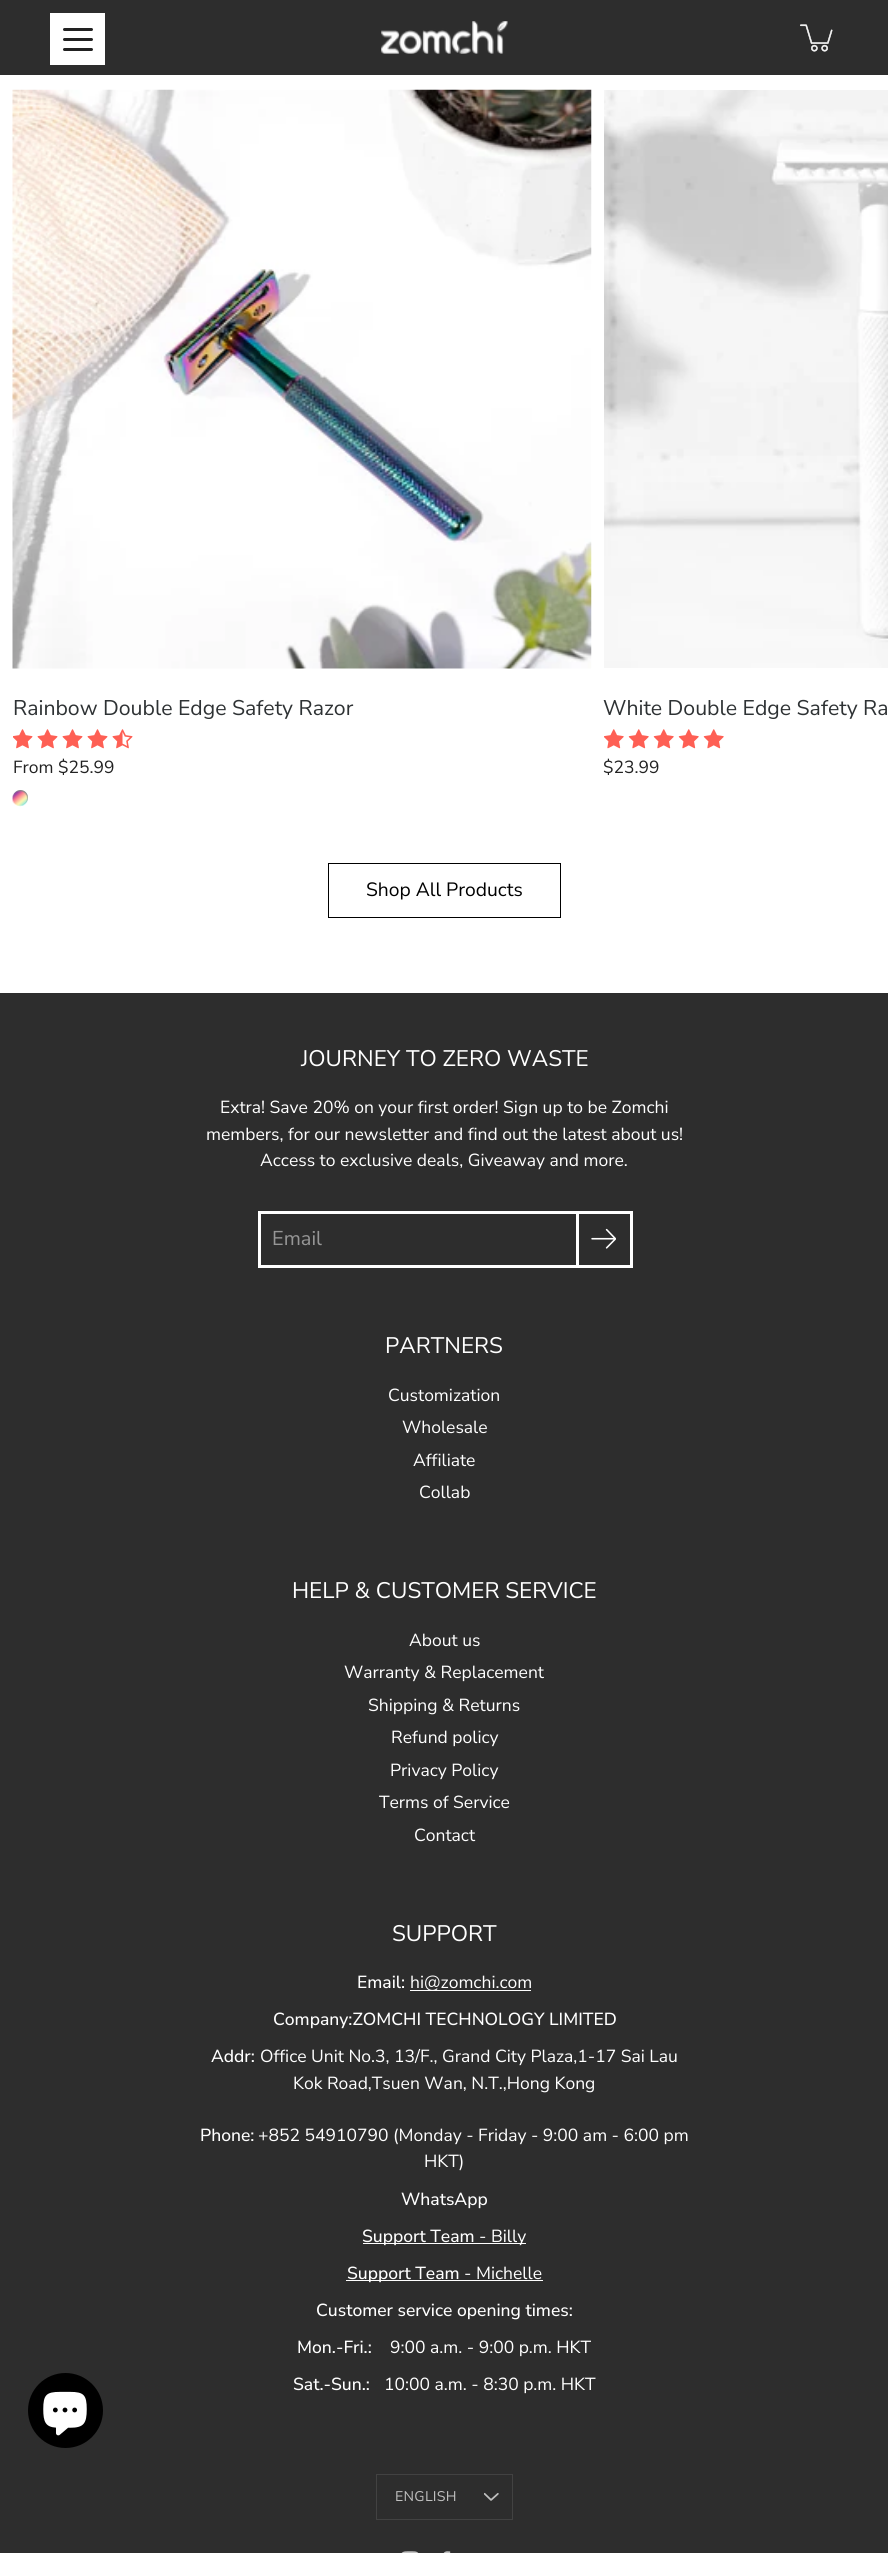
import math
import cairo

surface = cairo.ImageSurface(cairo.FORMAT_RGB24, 888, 2553)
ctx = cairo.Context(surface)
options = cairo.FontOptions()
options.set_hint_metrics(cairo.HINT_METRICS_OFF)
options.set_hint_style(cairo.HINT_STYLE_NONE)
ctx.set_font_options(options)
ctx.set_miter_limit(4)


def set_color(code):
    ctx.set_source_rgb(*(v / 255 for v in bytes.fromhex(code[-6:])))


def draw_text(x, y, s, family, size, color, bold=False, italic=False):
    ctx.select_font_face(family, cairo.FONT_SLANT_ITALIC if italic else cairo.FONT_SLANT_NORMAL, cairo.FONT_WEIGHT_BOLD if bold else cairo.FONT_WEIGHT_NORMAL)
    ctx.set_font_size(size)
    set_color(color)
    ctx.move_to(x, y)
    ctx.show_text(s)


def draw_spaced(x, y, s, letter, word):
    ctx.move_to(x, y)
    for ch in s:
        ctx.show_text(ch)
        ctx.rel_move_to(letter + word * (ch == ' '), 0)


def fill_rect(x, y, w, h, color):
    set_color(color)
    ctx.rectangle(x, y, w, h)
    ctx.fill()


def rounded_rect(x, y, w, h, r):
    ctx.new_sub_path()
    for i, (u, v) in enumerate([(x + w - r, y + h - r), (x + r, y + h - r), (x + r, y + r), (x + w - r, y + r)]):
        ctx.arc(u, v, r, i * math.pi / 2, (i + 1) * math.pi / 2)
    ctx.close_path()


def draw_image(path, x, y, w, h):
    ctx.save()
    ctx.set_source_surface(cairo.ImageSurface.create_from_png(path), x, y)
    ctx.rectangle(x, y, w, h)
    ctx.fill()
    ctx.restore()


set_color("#ffffff")
ctx.paint()
fill_rect(0, 0, 888, 75, "#2d2d2d")
fill_rect(50, 13, 55, 52, "#ffffff")
set_color("#222222")
rounded_rect(63, 38, 30, 3, 1.5)
ctx.fill()
rounded_rect(63, 28, 30, 3, 1.5)
ctx.fill()
rounded_rect(63, 48, 30, 3, 1.5)
ctx.fill()
draw_image("assets/img1.png", 800, 24, 33, 28)
draw_image("assets/img2.png", 381, 21, 127, 33)
draw_image("assets/img3.png", 12, 89, 580, 580)
draw_text(13, 715, "Rainbow Double Edge Safety Razor", "Nunito Sans", 21.25, "#2e3234")
draw_image("assets/img4.png", 13, 729, 20, 20)
draw_image("assets/img5.png", 37, 729, 21, 20)
draw_image("assets/img5.png", 62, 729, 21, 20)
draw_image("assets/img5.png", 87, 729, 21, 20)
draw_image("assets/img6.png", 112, 729, 21, 20)
draw_text(13, 773, "From $25.99", "Nunito Sans", 17.5, "#222222")
set_color("#888888")
ctx.new_path()
ctx.arc(20.5, 797.5, 7.5, 0, 2 * math.pi)
ctx.fill()
draw_image("assets/img7.png", 12, 790, 16, 17)
draw_image("assets/img8.png", 604, 90, 284, 578)
draw_text(603, 715, "White Double Edge Safety Ra", "Nunito Sans", 21.25, "#2e3234")
draw_image("assets/img9.png", 604, 729, 20, 20)
draw_image("assets/img10.png", 628, 729, 21, 20)
draw_image("assets/img10.png", 653, 729, 21, 20)
draw_image("assets/img10.png", 678, 729, 21, 20)
draw_image("assets/img10.png", 703, 729, 21, 20)
draw_text(603, 773, "$23.99", "Nunito Sans", 17.5, "#222222")
ctx.rectangle(328.5, 863.5, 232, 54)
set_color("#000000")
ctx.set_line_width(1)
ctx.stroke()
draw_text(366, 896, "Shop All Products", "Nunito Sans", 19.25, "#000000")
fill_rect(0, 993, 888, 1560, "#2d2d2d")
draw_text(301, 1066, "JOURNEY TO ZERO WASTE", "Nunito Sans", 22.5, "#ffffff")
draw_text(220, 1113, "Extra! Save 20% on your first order! Sign up to be Zomchi", "Nunito Sans", 17.5, "#ffffff")
draw_text(206, 1140, "members, for our newsletter and find out the latest about us!", "Nunito Sans", 17.5, "#ffffff")
draw_text(260, 1166, "Access to exclusive deals, Giveaway and more.", "Nunito Sans", 17.5, "#ffffff")
ctx.rectangle(259.5, 1212.5, 372, 54)
ctx.set_line_width(3)
ctx.stroke()
draw_text(272, 1245, "Email", "Nunito Sans", 20, "#969696")
ctx.rectangle(577.5, 1212.5, 54, 54)
set_color("#ffffff")
ctx.stroke()
draw_image("assets/img11.png", 591, 1228, 25, 21)
draw_text(385, 1353, "PARTNERS", "Nunito Sans", 22.5, "#ffffff")
draw_text(388, 1401, "Customization", "Nunito Sans", 17.5, "#ffffff")
draw_text(402, 1433, "Wholesale", "Nunito Sans", 17.5, "#ffffff")
draw_text(413, 1466, "Affiliate", "Nunito Sans", 17.5, "#ffffff")
draw_text(419, 1498, "Collab", "Nunito Sans", 17.5, "#ffffff")
draw_text(292, 1598, "HELP & CUSTOMER SERVICE", "Nunito Sans", 22.5, "#ffffff")
draw_text(409, 1646, "About us", "Nunito Sans", 17.5, "#ffffff")
draw_text(344, 1678, "Warranty & Replacement", "Nunito Sans", 17.5, "#ffffff")
draw_text(368, 1711, "Shipping & Returns", "Nunito Sans", 17.5, "#ffffff")
draw_text(391, 1743, "Refund policy", "Nunito Sans", 17.5, "#ffffff")
draw_text(390, 1776, "Privacy Policy", "Nunito Sans", 17.5, "#ffffff")
draw_text(379, 1808, "Terms of Service", "Nunito Sans", 17.5, "#ffffff")
draw_text(414, 1841, "Contact", "Nunito Sans", 17.5, "#ffffff")
draw_text(392, 1941, "SUPPORT", "Nunito Sans", 22.5, "#ffffff")
draw_text(357, 1988, "Email:", "Nunito Sans Medium", 17.5, "#ffffff")
fill_rect(410, 1990, 121, 1, "#ffffff")
draw_text(410, 1988, "hi@zomchi.com", "Nunito Sans", 17.5, "#ffffff")
draw_text(273, 2025, "Company:ZOMCHI TECHNOLOGY LIMITED", "Nunito Sans Medium", 17.5, "#ffffff")
draw_text(211, 2062, "Addr:", "Nunito Sans Medium", 17.5, "#ffffff")
draw_text(260, 2062, "Office Unit No.3, 13/F., Grand City Plaza,1-17 Sai Lau", "Nunito Sans", 17.5, "#ffffff")
draw_text(293, 2089, "Kok Road,Tsuen Wan, N.T.,Hong Kong", "Nunito Sans", 17.5, "#ffffff")
draw_text(200, 2141, "Phone:", "Nunito Sans Medium", 17.5, "#ffffff")
draw_text(258, 2141, "+852 54910790 (Monday - Friday - 9:00 am - 6:00 pm", "Nunito Sans", 17.5, "#ffffff")
draw_text(424, 2167, "HKT)", "Nunito Sans", 17.5, "#ffffff")
draw_text(401, 2205, "WhatsApp", "Nunito Sans Medium", 17.5, "#ffffff")
fill_rect(363, 2243, 163, 1, "#ffffff")
draw_text(362, 2242, "Support Team", "Nunito Sans Medium", 17.5, "#ffffff")
draw_text(479, 2242, "- Billy", "Nunito Sans", 17.5, "#ffffff")
fill_rect(346, 2280, 197, 1, "#ffffff")
draw_text(347, 2279, "Support Team", "Nunito Sans Medium", 17.5, "#ffffff")
draw_text(464, 2279, "- Michelle", "Nunito Sans", 17.5, "#ffffff")
draw_text(316, 2316, "Customer service opening times:", "Nunito Sans Medium", 17.5, "#ffffff")
draw_text(297, 2353, "Mon.-Fri.:", "Nunito Sans Medium", 17.5, "#ffffff")
draw_text(390, 2353, "9:00 a.m. - 9:00 p.m. HKT", "Nunito Sans", 17.5, "#ffffff")
draw_text(293, 2390, "Sat.-Sun.:", "Nunito Sans Medium", 17.5, "#ffffff")
draw_text(384, 2390, "10:00 a.m. - 8:30 p.m. HKT", "Nunito Sans", 17.5, "#ffffff")
ctx.rectangle(376.5, 2474.5, 136, 45)
set_color("#424242")
ctx.set_line_width(1)
ctx.stroke()
ctx.select_font_face("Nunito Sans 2")
ctx.set_font_size(14)
set_color("#c0c0c0")
draw_spaced(395, 2501, "ENGLISH", 0.25, 0)
draw_image("assets/img12.png", 484, 2492, 15, 9)
draw_image("assets/img13.png", 401, 2551, 18, 2)
draw_image("assets/img14.png", 443, 2551, 8, 2)
set_color("#000000")
ctx.arc(65.5, 2410.5, 37.5, 0, 2 * math.pi)
ctx.fill()
draw_image("assets/img15.png", 43, 2391, 44, 45)
surface.write_to_png("output.png")
